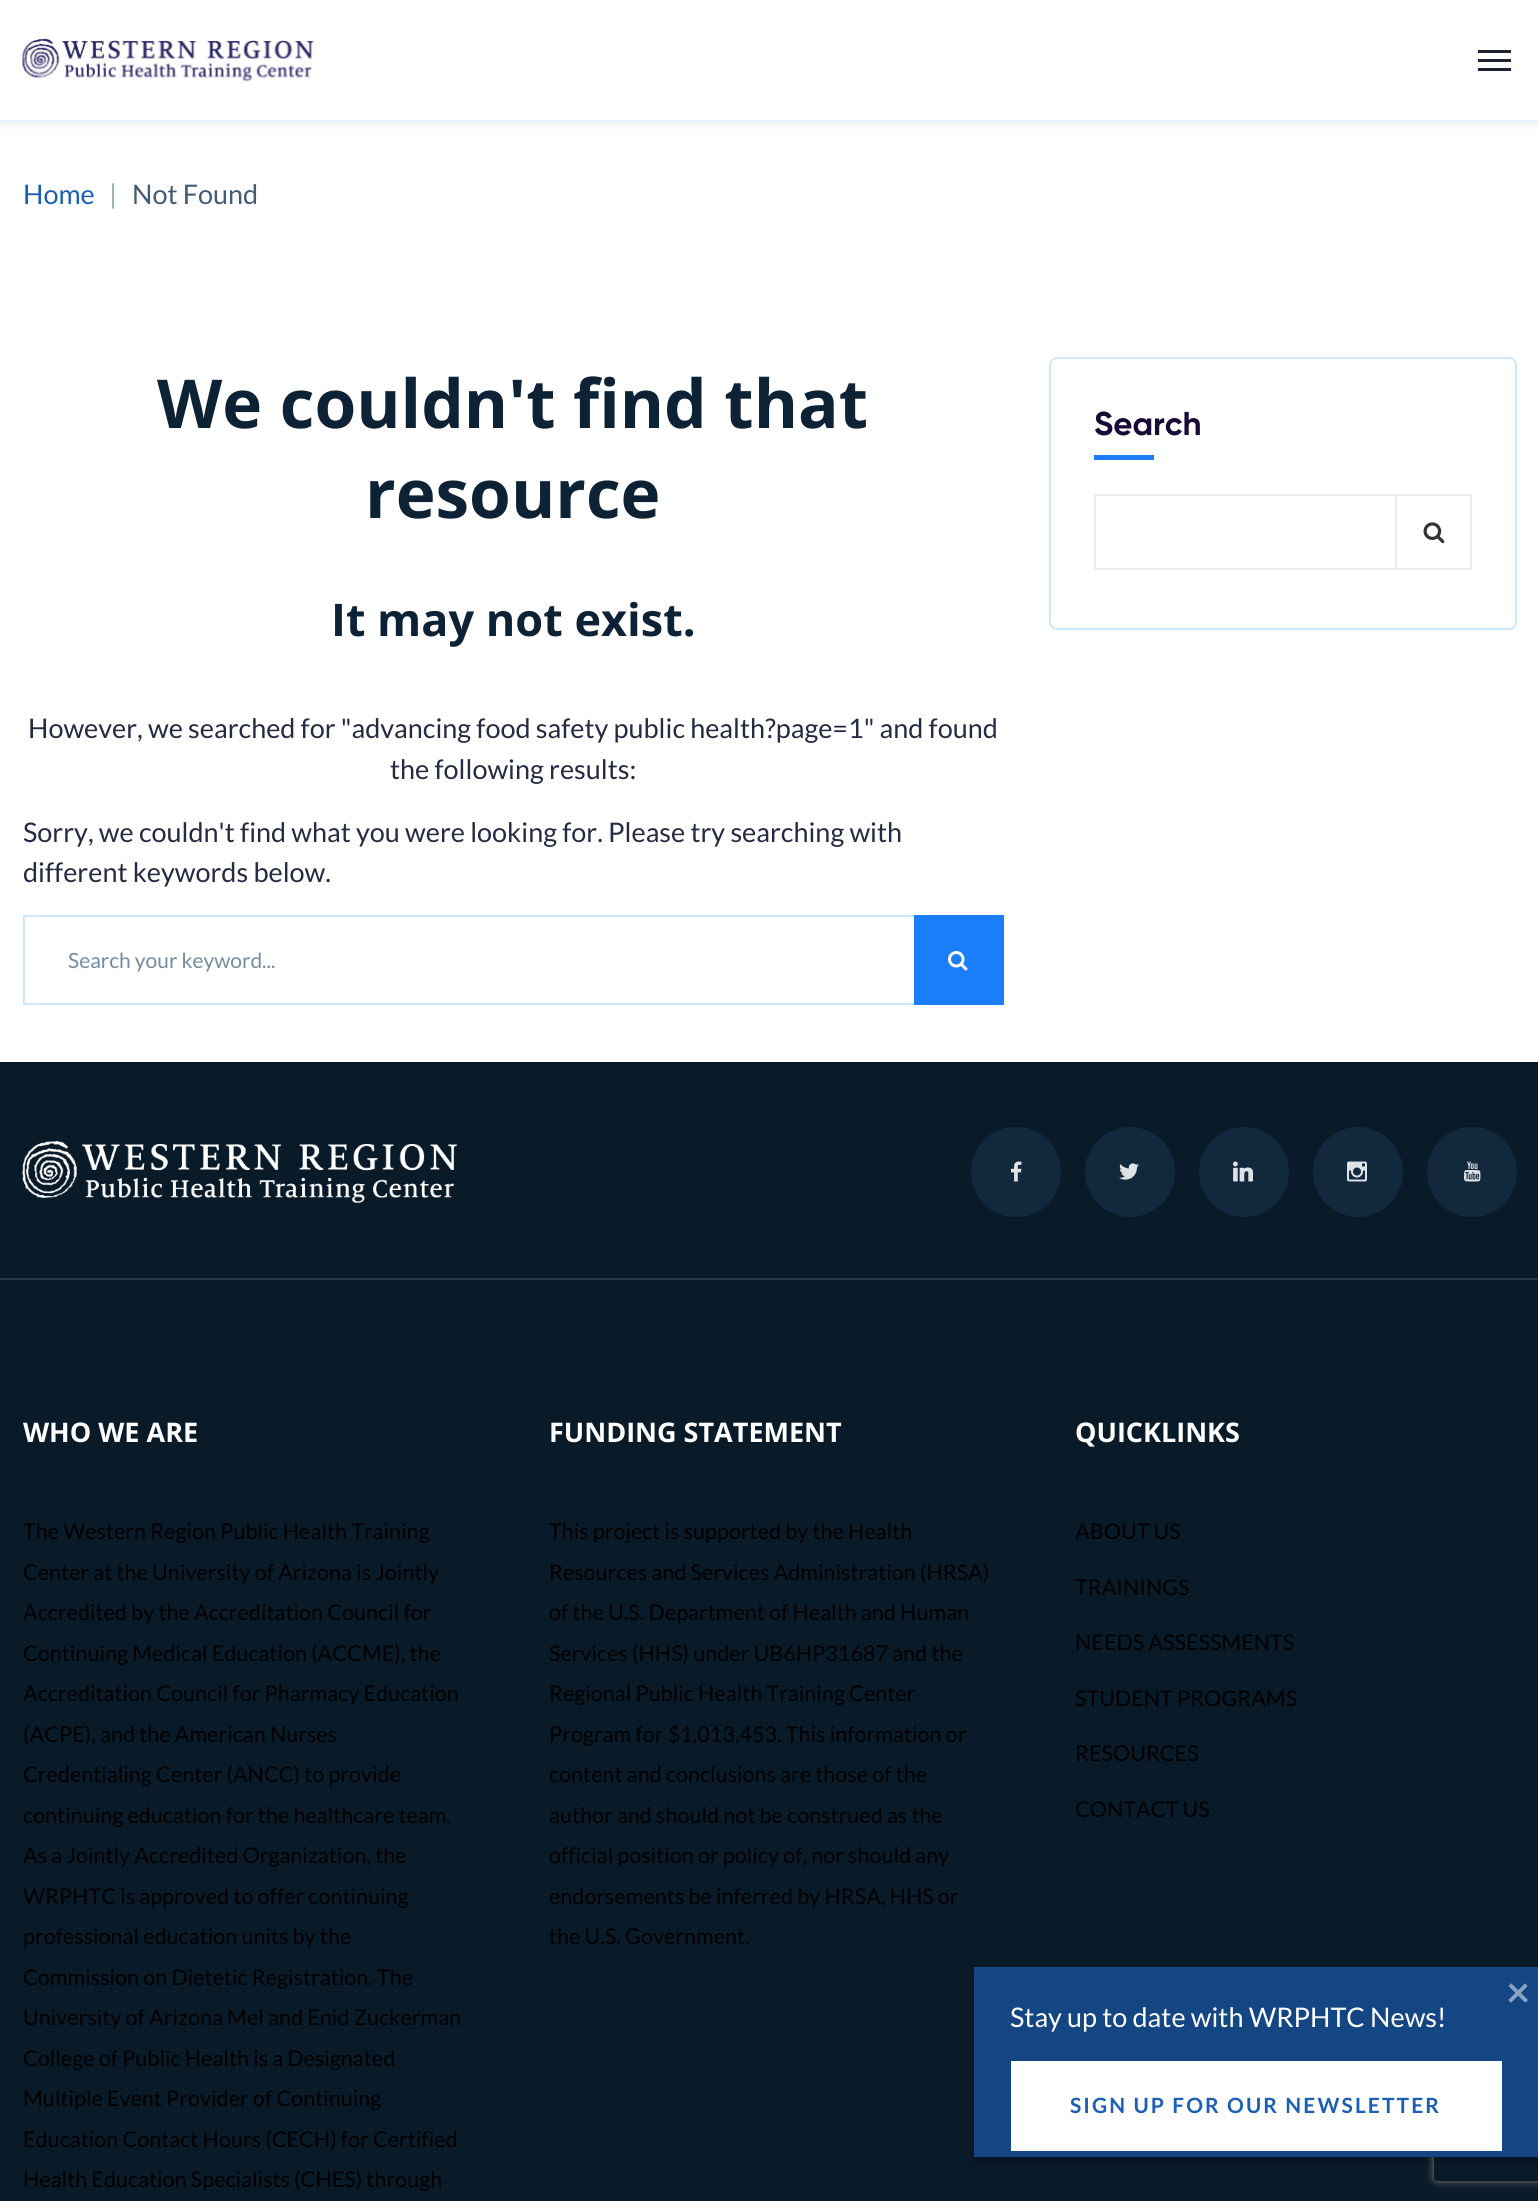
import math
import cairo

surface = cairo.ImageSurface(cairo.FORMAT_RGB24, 1538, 2201)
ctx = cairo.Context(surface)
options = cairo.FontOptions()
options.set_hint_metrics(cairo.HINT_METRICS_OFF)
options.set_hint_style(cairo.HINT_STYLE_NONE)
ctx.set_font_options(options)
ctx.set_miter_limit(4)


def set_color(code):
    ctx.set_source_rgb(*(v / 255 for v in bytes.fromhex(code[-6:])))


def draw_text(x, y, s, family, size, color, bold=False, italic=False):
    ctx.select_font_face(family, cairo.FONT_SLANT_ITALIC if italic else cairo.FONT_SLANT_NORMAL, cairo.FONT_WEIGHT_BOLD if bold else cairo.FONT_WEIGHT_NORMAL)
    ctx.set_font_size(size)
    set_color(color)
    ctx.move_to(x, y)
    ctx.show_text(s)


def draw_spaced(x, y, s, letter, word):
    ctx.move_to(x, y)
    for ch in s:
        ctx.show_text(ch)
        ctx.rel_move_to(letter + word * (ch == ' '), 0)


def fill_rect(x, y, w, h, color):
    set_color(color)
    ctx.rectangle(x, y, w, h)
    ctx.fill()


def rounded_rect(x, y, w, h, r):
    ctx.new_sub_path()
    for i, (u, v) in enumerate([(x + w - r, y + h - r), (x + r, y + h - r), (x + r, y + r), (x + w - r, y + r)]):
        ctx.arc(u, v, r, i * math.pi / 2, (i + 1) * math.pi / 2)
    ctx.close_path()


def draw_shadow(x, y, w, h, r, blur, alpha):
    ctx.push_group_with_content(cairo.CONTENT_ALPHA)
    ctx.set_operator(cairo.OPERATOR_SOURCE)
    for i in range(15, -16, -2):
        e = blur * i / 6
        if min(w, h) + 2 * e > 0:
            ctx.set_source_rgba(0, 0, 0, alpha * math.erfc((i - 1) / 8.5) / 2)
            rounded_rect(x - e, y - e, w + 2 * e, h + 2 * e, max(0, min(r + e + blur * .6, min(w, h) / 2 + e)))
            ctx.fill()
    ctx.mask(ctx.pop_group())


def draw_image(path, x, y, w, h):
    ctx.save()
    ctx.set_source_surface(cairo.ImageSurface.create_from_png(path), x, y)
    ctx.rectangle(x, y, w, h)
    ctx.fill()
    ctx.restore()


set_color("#ffffff")
ctx.paint()
set_color("#000000")
draw_shadow(0, 5, 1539, 121, 0, 4.5, 0.05)
fill_rect(0, 1, 1538, 119, "#ffffff")
fill_rect(0, 120, 1538, 2, "#e7f3ff")
draw_image("assets/img1.png", 22, 38, 292, 44)
fill_rect(1478, 50, 33, 3, "#1f2233")
fill_rect(1478, 59, 33, 3, "#1f2233")
fill_rect(1478, 68, 33, 3, "#1f2233")
draw_text(23, 204, "Home", "Lato", 27, "#1c60b5")
draw_text(109, 204, "|", "Lato", 27, "#99acc2")
draw_text(132, 204, "Not Found", "Lato", 27, "#425b76")
draw_text(157, 428, "We couldn't find that", "Open Sans", 67.5, "#0d2335", bold=True)
draw_text(365, 518, "resource", "Open Sans", 67.5, "#0d2335", bold=True)
draw_text(331, 636, "It may not exist.", "Open Sans", 45, "#0d2335", bold=True)
draw_text(28, 738, "However, we searched for \"advancing food safety public health?page=1\" and found", "Lato", 27, "#252b42")
draw_text(390, 779, "the following results:", "Lato", 27, "#252b42")
draw_text(23, 842, "Sorry, we couldn't find what you were looking for. Please try searching with", "Lato", 27, "#252b42")
draw_text(23, 882, "different keywords below.", "Lato", 27, "#252b42")
ctx.rectangle(24, 916, 979, 88)
set_color("#d0e7fa")
ctx.stroke()
draw_text(68, 968, "Search your keyword...", "Lato", 21, "#758ca0")
fill_rect(914, 915, 90, 90, "#1a7efb")
draw_image("assets/img2.png", 948, 951, 20, 20)
rounded_rect(1050, 358, 466, 271, 7)
set_color("#d0e7fa")
ctx.stroke()
draw_text(1094, 435, "Search", "Gilroy", 33, "#180b36", bold=True)
fill_rect(1094, 455, 60, 5, "#1a7efb")
ctx.rectangle(1095, 495, 376, 74)
set_color("#ececf0")
ctx.stroke()
fill_rect(1395, 494, 2, 76, "#ececf0")
draw_image("assets/img3.png", 1423, 522, 22, 22)
fill_rect(0, 1062, 1538, 1139, "#091a29")
draw_image("assets/img4.png", 22, 1141, 435, 63)
set_color("#12283c")
ctx.arc(1016, 1172, 45, 0, 2 * math.pi)
ctx.fill()
draw_image("assets/img5.png", 1011, 1161, 11, 21)
ctx.arc(1130, 1172, 45, 0, 2 * math.pi)
ctx.fill()
draw_image("assets/img6.png", 1119, 1163, 20, 17)
ctx.arc(1244, 1172, 45, 0, 2 * math.pi)
ctx.fill()
draw_image("assets/img7.png", 1233, 1161, 20, 21)
ctx.arc(1358, 1172, 45, 0, 2 * math.pi)
ctx.fill()
draw_image("assets/img8.png", 1347, 1161, 20, 21)
ctx.arc(1472, 1172, 45, 0, 2 * math.pi)
ctx.fill()
draw_image("assets/img9.png", 1464, 1161, 17, 21)
fill_rect(0, 1278, 1538, 2, "#273543")
draw_text(23, 1442, "WHO WE ARE", "Open Sans", 27, "#ffffff", bold=True)
draw_text(23, 1539, "The Western Region Public Health Training", "Lato", 21.6, "#000000")
draw_text(23, 1580, "Center at the University of Arizona is Jointly", "Lato", 21.6, "#000000")
draw_text(23, 1620, "Accredited by the Accreditation Council for", "Lato", 21.6, "#000000")
draw_text(23, 1661, "Continuing Medical Education (ACCME), the", "Lato", 21.6, "#000000")
draw_text(23, 1701, "Accreditation Council for Pharmacy Education", "Lato", 21.6, "#000000")
draw_text(23, 1742, "(ACPE), and the American Nurses", "Lato", 21.6, "#000000")
draw_text(23, 1782, "Credentialing Center (ANCC) to provide", "Lato", 21.6, "#000000")
draw_text(23, 1823, "continuing education for the healthcare team.", "Lato", 21.6, "#000000")
draw_text(23, 1863, "As a Jointly Accredited Organization, the", "Lato", 21.6, "#000000")
draw_text(23, 1904, "WRPHTC is approved to offer continuing", "Lato", 21.6, "#000000")
draw_text(23, 1944, "professional education units by the", "Lato", 21.6, "#000000")
draw_text(23, 1985, "Commission on Dietetic Registration. The", "Lato", 21.6, "#000000")
draw_text(23, 2025, "University of Arizona Mel and Enid Zuckerman", "Lato", 21.6, "#000000")
draw_text(23, 2066, "College of Public Health is a Designated", "Lato", 21.6, "#000000")
draw_text(23, 2106, "Multiple Event Provider of Continuing", "Lato", 21.6, "#000000")
draw_text(23, 2147, "Education Contact Hours (CECH) for Certified", "Lato", 21.6, "#000000")
draw_text(23, 2187, "Health Education Specialists (CHES) through", "Lato", 21.6, "#000000")
draw_text(549, 1442, "FUNDING STATEMENT", "Open Sans", 27, "#ffffff", bold=True)
draw_text(549, 1539, "This project is supported by the Health", "Lato", 21.6, "#000000")
draw_text(549, 1580, "Resources and Services Administration (HRSA)", "Lato", 21.6, "#000000")
draw_text(549, 1620, "of the U.S. Department of Health and Human", "Lato", 21.6, "#000000")
draw_text(549, 1661, "Services (HHS) under UB6HP31687 and the", "Lato", 21.6, "#000000")
draw_text(549, 1701, "Regional Public Health Training Center", "Lato", 21.6, "#000000")
draw_text(549, 1742, "Program for $1,013,453. This information or", "Lato", 21.6, "#000000")
draw_text(549, 1782, "content and conclusions are those of the", "Lato", 21.6, "#000000")
draw_text(549, 1823, "author and should not be construed as the", "Lato", 21.6, "#000000")
draw_text(549, 1863, "official position or policy of, nor should any", "Lato", 21.6, "#000000")
draw_text(549, 1904, "endorsements be inferred by HRSA, HHS or", "Lato", 21.6, "#000000")
draw_text(549, 1944, "the U.S. Government.", "Lato", 21.6, "#000000")
draw_text(1075, 1442, "QUICKLINKS", "Open Sans", 27, "#ffffff", bold=True)
draw_text(1075, 1539, "ABOUT US", "Lato", 21.6, "#000000")
draw_text(1075, 1595, "TRAININGS", "Lato", 21.6, "#000000")
draw_text(1075, 1650, "NEEDS ASSESSMENTS", "Lato", 21.6, "#000000")
draw_text(1075, 1706, "STUDENT PROGRAMS", "Lato", 21.6, "#000000")
draw_text(1075, 1761, "RESOURCES", "Lato", 21.6, "#000000")
draw_text(1075, 1817, "CONTACT US", "Lato", 21.6, "#000000")
set_color("#000000")
draw_shadow(974, 1971, 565, 191, 0, 4.5, 0.23)
ctx.save()
ctx.set_fill_rule(cairo.FILL_RULE_EVEN_ODD)
ctx.new_path()
ctx.move_to(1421, 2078)
ctx.line_to(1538, 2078)
ctx.line_to(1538, 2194)
ctx.line_to(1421, 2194)
ctx.close_path()
ctx.move_to(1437, 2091)
ctx.line_to(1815, 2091)
ctx.curve_to(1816.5, 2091, 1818, 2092.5, 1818, 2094)
ctx.line_to(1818, 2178)
ctx.curve_to(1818, 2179.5, 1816.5, 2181, 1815, 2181)
ctx.line_to(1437, 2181)
ctx.curve_to(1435.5, 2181, 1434, 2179.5, 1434, 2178)
ctx.line_to(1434, 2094)
ctx.curve_to(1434, 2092.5, 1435.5, 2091, 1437, 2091)
ctx.close_path()
ctx.clip()
set_color("#808080")
draw_shadow(1434, 2091, 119, 90, 3, 4, 1)
ctx.restore()
fill_rect(974, 1967, 564, 190, "#154684")
draw_text(1506, 2007, "×", "Lato", 42, "#8aa3c2", bold=True)
draw_text(1010, 2027, "Stay up to date with WRPHTC News!", "Lato", 27, "#ffffff")
fill_rect(1011, 2061, 491, 90, "#ffffff")
ctx.select_font_face("Lato", cairo.FONT_SLANT_NORMAL, cairo.FONT_WEIGHT_BOLD)
ctx.set_font_size(21)
set_color("#1c60b5")
draw_spaced(1070, 2113, "SIGN UP FOR OUR NEWSLETTER", 2.1, 0)
surface.write_to_png("output.png")
